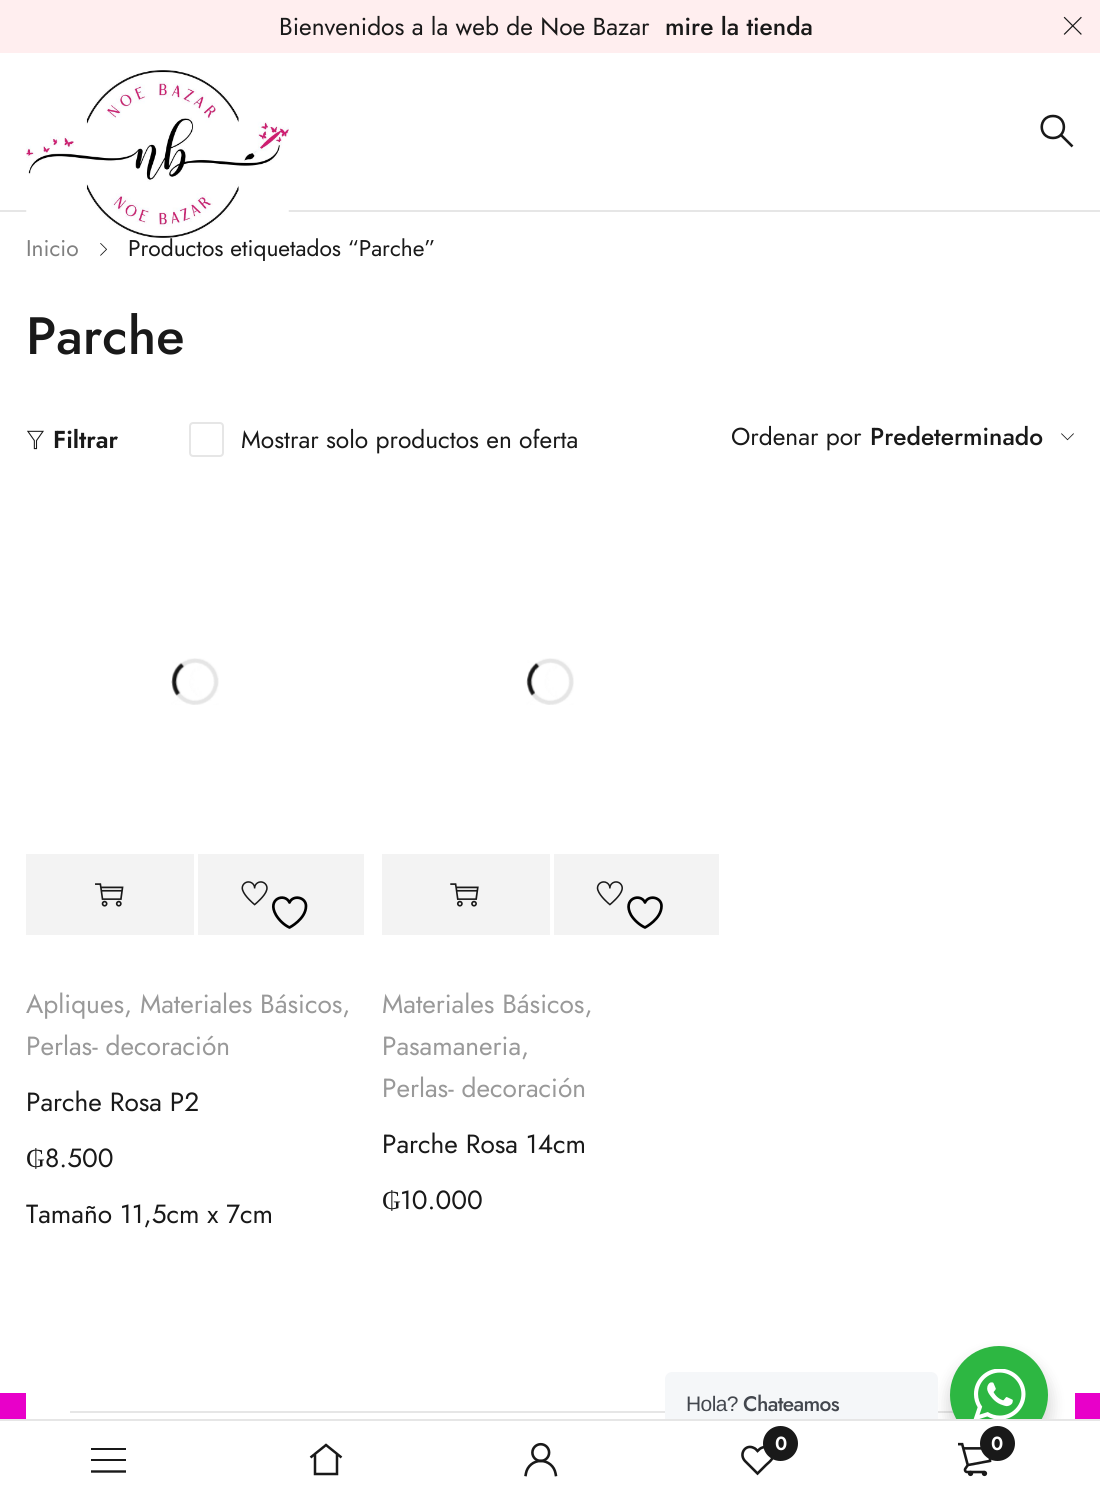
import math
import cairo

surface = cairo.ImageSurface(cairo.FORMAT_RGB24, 1100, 1495)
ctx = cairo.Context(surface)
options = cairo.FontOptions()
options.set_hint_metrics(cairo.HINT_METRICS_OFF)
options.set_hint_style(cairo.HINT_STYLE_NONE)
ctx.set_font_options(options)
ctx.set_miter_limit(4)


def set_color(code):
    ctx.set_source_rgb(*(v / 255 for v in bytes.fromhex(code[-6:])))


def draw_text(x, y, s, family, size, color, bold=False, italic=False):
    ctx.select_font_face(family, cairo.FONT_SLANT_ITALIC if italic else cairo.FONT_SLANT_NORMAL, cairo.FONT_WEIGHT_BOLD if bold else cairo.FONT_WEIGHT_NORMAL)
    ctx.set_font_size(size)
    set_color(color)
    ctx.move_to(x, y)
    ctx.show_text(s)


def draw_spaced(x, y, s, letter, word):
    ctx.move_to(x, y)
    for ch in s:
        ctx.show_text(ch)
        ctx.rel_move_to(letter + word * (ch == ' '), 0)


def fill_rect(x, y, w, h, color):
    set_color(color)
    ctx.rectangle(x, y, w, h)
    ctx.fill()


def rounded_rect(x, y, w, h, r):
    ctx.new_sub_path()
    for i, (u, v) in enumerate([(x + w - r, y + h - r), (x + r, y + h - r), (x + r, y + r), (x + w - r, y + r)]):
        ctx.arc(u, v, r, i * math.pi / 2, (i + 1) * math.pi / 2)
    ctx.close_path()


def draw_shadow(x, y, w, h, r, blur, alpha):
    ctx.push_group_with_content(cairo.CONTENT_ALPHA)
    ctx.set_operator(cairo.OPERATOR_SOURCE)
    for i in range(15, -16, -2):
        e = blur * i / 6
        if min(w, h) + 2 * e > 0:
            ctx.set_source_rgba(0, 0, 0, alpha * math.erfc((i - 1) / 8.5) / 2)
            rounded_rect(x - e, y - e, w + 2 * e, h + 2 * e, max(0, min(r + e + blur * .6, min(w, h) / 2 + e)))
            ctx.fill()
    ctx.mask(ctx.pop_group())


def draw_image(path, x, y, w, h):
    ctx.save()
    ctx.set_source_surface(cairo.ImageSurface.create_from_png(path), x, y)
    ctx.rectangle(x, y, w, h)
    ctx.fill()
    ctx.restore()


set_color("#e800c9")
ctx.paint()
fill_rect(0, 0, 1100, 53, "#ffeeef")
draw_text(279, 35, "Bienvenidos a la web de Noe Bazar", "Jost", 24.5, "#191919")
draw_text(665, 35, "mire la tienda", "Jost Medium", 24.5, "#191919")
draw_image("assets/img1.png", 1063, 16, 19, 19)
fill_rect(0, 53, 1100, 157, "#ffffff")
fill_rect(0, 210, 1100, 2, "#e6e6e6")
fill_rect(0, 212, 1100, 1181, "#ffffff")
draw_image("assets/img2.png", 26, 70, 263, 168)
ctx.new_path()
ctx.move_to(1053, 138)
ctx.curve_to(1067.5, 138, 1067.5, 116, 1053, 116)
ctx.curve_to(1038, 116, 1038, 138, 1053, 138)
ctx.close_path()
ctx.move_to(1072.5, 146.5)
ctx.line_to(1060.5, 134.5)
set_color("#191919")
ctx.set_line_width(2.6)
ctx.stroke()
draw_text(26, 256, "Inicio", "Jost", 22.75, "#808080")
draw_image("assets/img3.png", 100, 243, 7, 13)
draw_text(128, 256, "Productos etiquetados “Parche”", "Jost", 22.75, "#191919")
draw_text(26, 354, "Parche", "Jost Medium", 52.5, "#191919")
draw_image("assets/img4.png", 27, 430, 17, 20)
draw_text(53, 448, "Filtrar", "Jost SemiBold", 24.5, "#191919")
rounded_rect(190, 423, 33, 33, 3)
set_color("#e6e6e6")
ctx.set_line_width(2)
ctx.stroke()
draw_text(241, 448, "Mostrar solo productos en oferta", "Jost", 24.5, "#191919")
draw_text(731, 445, "Ordenar por", "Jost", 24.5, "#191919")
draw_text(870, 445, "Predeterminado", "Jost Medium", 24.5, "#191919")
draw_image("assets/img5.png", 1061, 433, 13, 8)
draw_image("assets/img6.png", 171, 658, 48, 47)
fill_rect(26, 854, 338, 81, "#f3f3f3")
fill_rect(194, 854, 4, 81, "#ffffff")
draw_image("assets/img7.png", 95, 883, 29, 24)
draw_image("assets/img8.png", 241, 881, 27, 25)
ctx.new_path()
ctx.move_to(306, 906)
ctx.curve_to(306, 897, 293, 894.5, 289.5, 902.5)
ctx.curve_to(285, 892.5, 266.5, 898.5, 276, 915)
ctx.curve_to(279, 920, 284, 925, 289.5, 927.5)
ctx.curve_to(289.5, 927.5, 306, 919, 306, 906)
ctx.close_path()
set_color("#000000")
ctx.set_line_width(2.7)
ctx.set_line_cap(cairo.LINE_CAP_ROUND)
ctx.set_line_join(cairo.LINE_JOIN_ROUND)
ctx.stroke()
draw_text(26, 1013, "Apliques, Materiales Básicos,", "Jost", 26.25, "#999999")
draw_text(26, 1055, "Perlas- decoración", "Jost", 26.25, "#999999")
draw_text(26, 1111, "Parche Rosa P2", "Jost", 26.25, "#191919")
draw_text(26, 1167, "₲", "Liberation Serif", 26.25, "#191919")
draw_text(45, 1167, "8.500", "Jost", 26.25, "#191919")
draw_text(26, 1223, "Tamaño 11,5cm x 7cm", "Jost", 26.25, "#191919")
draw_image("assets/img9.png", 526, 658, 48, 47)
fill_rect(382, 854, 337, 81, "#f3f3f3")
fill_rect(550, 854, 4, 81, "#ffffff")
draw_image("assets/img10.png", 450, 883, 29, 24)
draw_image("assets/img11.png", 596, 881, 27, 25)
ctx.new_path()
ctx.move_to(661.5, 906)
ctx.curve_to(661.5, 897, 648.5, 894.5, 645, 902.5)
ctx.curve_to(640.5, 892.5, 622, 898.5, 631, 915)
ctx.curve_to(634, 920, 639.5, 925, 645, 927.5)
ctx.curve_to(645, 927.5, 661.5, 919, 661.5, 906)
ctx.close_path()
set_color("#000000")
ctx.stroke()
draw_text(382, 1013, "Materiales Básicos,", "Jost", 26.25, "#999999")
draw_text(382, 1055, "Pasamaneria,", "Jost", 26.25, "#999999")
draw_text(382, 1097, "Perlas- decoración", "Jost", 26.25, "#999999")
draw_text(382, 1153, "Parche Rosa 14cm", "Jost", 26.25, "#191919")
draw_text(382, 1209, "₲", "Liberation Serif", 26.25, "#191919")
draw_text(400, 1209, "10.000", "Jost", 26.25, "#191919")
fill_rect(26, 1393, 1049, 26, "#ffffff")
fill_rect(70, 1411, 884, 2, "#e6e6e6")
set_color("#000000")
draw_shadow(947, 1353, 105, 105, 52.5, 7, 0.14)
set_color("#f5f7f9")
rounded_rect(665, 1372, 273, 63, 7)
ctx.fill()
ctx.select_font_face("Liberation Sans")
ctx.set_font_size(21)
set_color("#43474e")
draw_spaced(686, 1411, "Hola?", -0.6, 0)
ctx.select_font_face("Jost Medium")
draw_spaced(743, 1411, "Chateamos", -0.6, 0)
set_color("#2db742")
ctx.new_path()
ctx.arc(999, 1395, 49, 0, 2 * math.pi)
ctx.fill()
draw_image("assets/img12.png", 973, 1369, 53, 50)
fill_rect(0, 1421, 1100, 74, "#ffffff")
fill_rect(0, 1419, 1100, 2, "#e6e6e6")
fill_rect(91, 1448, 35, 2, "#191919")
fill_rect(91, 1459, 35, 2, "#191919")
ctx.new_path()
ctx.move_to(91, 1471.5)
ctx.line_to(126, 1471.5)
ctx.set_line_width(2.4)
ctx.set_line_cap(cairo.LINE_CAP_BUTT)
ctx.set_line_join(cairo.LINE_JOIN_MITER)
ctx.stroke()
ctx.new_path()
ctx.move_to(337, 1454.5)
ctx.line_to(337, 1474)
ctx.line_to(315, 1474)
ctx.line_to(315, 1454.5)
ctx.move_to(341.5, 1457.5)
ctx.line_to(326, 1445)
ctx.line_to(310.5, 1457.5)
ctx.set_line_width(2.5)
ctx.stroke()
draw_image("assets/img13.png", 524, 1442, 34, 35)
ctx.new_path()
ctx.move_to(745, 1461)
ctx.curve_to(738.5, 1454, 745.5, 1443.5, 754, 1448)
ctx.curve_to(755.5, 1448.5, 756.5, 1450, 757.5, 1451)
ctx.curve_to(759, 1449.5, 760.5, 1448, 762.5, 1447.5)
ctx.curve_to(769, 1445, 775.5, 1452, 772.5, 1458)
ctx.curve_to(771, 1461, 768, 1463, 766, 1465)
ctx.line_to(757.5, 1473.5)
ctx.close_path()
ctx.set_line_width(2.6)
ctx.stroke()
ctx.arc(780.5, 1443.5, 17.5, 0, 2 * math.pi)
ctx.fill()
draw_text(775, 1450, "0", "Jost SemiBold", 19, "#ffffff")
draw_image("assets/img14.png", 958, 1442, 34, 35)
set_color("#191919")
ctx.arc(997.5, 1443.5, 17.5, 0, 2 * math.pi)
ctx.fill()
draw_text(991, 1450, "0", "Jost SemiBold", 19, "#ffffff")
surface.write_to_png("output.png")
